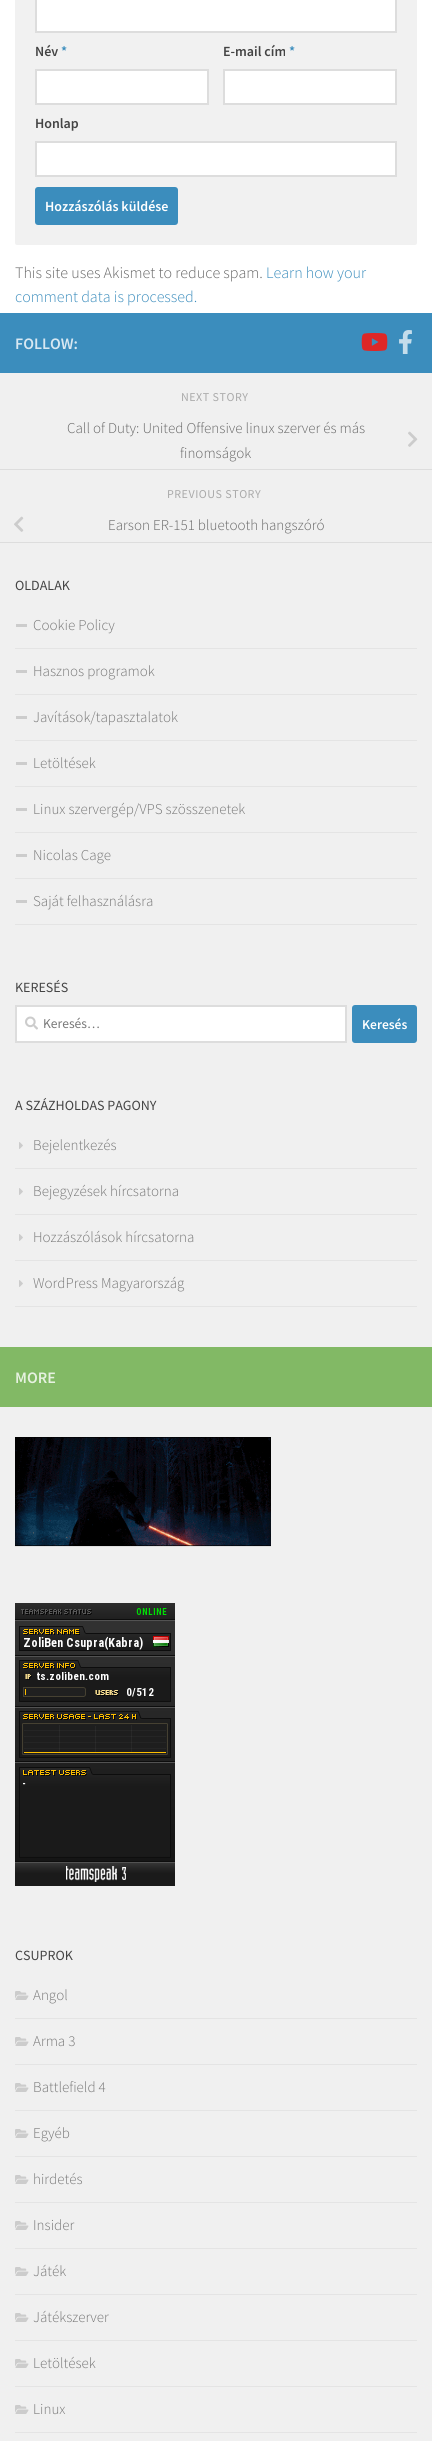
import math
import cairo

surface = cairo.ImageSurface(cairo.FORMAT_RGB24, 432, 2441)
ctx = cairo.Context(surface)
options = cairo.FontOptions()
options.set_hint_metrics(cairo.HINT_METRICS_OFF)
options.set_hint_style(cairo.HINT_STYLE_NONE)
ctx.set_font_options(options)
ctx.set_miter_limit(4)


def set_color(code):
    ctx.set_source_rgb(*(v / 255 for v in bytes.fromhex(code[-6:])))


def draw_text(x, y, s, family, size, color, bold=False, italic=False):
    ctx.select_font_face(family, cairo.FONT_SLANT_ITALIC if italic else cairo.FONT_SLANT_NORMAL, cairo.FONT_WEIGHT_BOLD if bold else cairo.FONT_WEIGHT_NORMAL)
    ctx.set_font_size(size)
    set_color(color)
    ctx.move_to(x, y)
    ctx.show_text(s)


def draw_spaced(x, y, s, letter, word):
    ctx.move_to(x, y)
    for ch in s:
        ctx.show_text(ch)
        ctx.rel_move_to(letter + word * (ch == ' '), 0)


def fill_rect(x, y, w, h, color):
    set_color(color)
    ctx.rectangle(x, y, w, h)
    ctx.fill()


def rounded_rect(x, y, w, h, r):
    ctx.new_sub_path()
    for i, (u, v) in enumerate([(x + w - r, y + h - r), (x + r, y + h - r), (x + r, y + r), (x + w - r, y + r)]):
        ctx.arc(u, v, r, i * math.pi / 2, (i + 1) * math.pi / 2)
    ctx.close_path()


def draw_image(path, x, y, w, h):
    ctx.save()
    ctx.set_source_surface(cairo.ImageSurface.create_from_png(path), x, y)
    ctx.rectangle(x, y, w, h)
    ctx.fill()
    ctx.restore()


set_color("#ffffff")
ctx.paint()
set_color("#f1f1f1")
rounded_rect(15, -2, 402, 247, 2)
ctx.fill()
set_color("#ffffff")
ctx.rectangle(36, -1, 360, 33)
ctx.fill_preserve()
set_color("#dddddd")
ctx.stroke()
draw_text(35, 56, "Név", "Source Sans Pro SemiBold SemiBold", 14, "#444444")
draw_text(61, 56, "*", "Source Sans Pro SemiBold SemiBold", 14, "#3b8dbd")
set_color("#ffffff")
ctx.rectangle(36, 70, 172, 34)
ctx.fill_preserve()
set_color("#dddddd")
ctx.stroke()
draw_text(223, 56, "E-mail cím", "Source Sans Pro SemiBold SemiBold", 14, "#444444")
draw_text(289, 56, "*", "Source Sans Pro SemiBold SemiBold", 14, "#3b8dbd")
set_color("#ffffff")
ctx.rectangle(224, 70, 172, 34)
ctx.fill_preserve()
set_color("#dddddd")
ctx.stroke()
draw_text(35, 128, "Honlap", "Source Sans Pro SemiBold SemiBold", 14, "#444444")
set_color("#ffffff")
ctx.rectangle(36, 142, 360, 34)
ctx.fill_preserve()
set_color("#dddddd")
ctx.stroke()
set_color("#3b8dbd")
rounded_rect(35, 187, 143, 38, 3)
ctx.fill()
draw_text(45, 211, "Hozzászólás küldése", "Source Sans Pro SemiBold SemiBold", 14, "#ffffff")
draw_text(15, 278, "This site uses Akismet to reduce spam.", "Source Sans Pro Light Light", 16, "#666666")
draw_text(266, 278, "Learn how your", "Source Sans Pro Light Light", 16, "#3b8dbd")
draw_text(15, 302, "comment data is processed.", "Source Sans Pro Light Light", 16, "#3b8dbd")
fill_rect(0, 373, 432, 974, "#f0f0f0")
fill_rect(0, 313, 432, 60, "#3b8dbd")
draw_text(15, 349, "FOLLOW:", "Source Sans Pro SemiBold SemiBold", 16, "#d8e8f2")
draw_image("assets/img1.png", 361, 333, 27, 18)
draw_image("assets/img2.png", 399, 330, 13, 24)
ctx.select_font_face("Source Sans Pro")
ctx.set_font_size(12)
set_color("#aaaaaa")
draw_spaced(181, 401, "NEXT STORY", 0.5, 0)
fill_rect(0, 469, 432, 1, "#dddddd")
draw_text(67, 433, "Call of Duty: United Offensive linux szerver és más", "Source Sans Pro Light Light", 15, "#666666")
draw_image("assets/img3.png", 408, 431, 10, 16)
draw_text(180, 458, "finomságok", "Source Sans Pro Light Light", 15, "#666666")
ctx.select_font_face("Source Sans Pro")
ctx.set_font_size(12)
set_color("#aaaaaa")
draw_spaced(167, 498, "PREVIOUS STORY", 0.5, 0)
fill_rect(0, 542, 432, 1, "#dddddd")
draw_image("assets/img4.png", 14, 516, 10, 16)
draw_text(108, 530, "Earson ER-151 bluetooth hangszóró", "Source Sans Pro Light Light", 15, "#666666")
draw_text(15, 590, "OLDALAK", "Source Sans Pro", 14, "#444444")
fill_rect(15, 648, 402, 1, "#e4e4e4")
fill_rect(16, 624, 11, 3, "#cccccc")
draw_text(33, 630, "Cookie Policy", "Source Sans Pro Light Light", 15, "#777777")
fill_rect(15, 694, 402, 1, "#e4e4e4")
fill_rect(16, 670, 11, 3, "#cccccc")
draw_text(33, 676, "Hasznos programok", "Source Sans Pro Light Light", 15, "#777777")
fill_rect(15, 740, 402, 1, "#e4e4e4")
fill_rect(16, 716, 11, 3, "#cccccc")
draw_text(33, 722, "Javítások/tapasztalatok", "Source Sans Pro Light Light", 15, "#777777")
fill_rect(15, 786, 402, 1, "#e4e4e4")
fill_rect(16, 762, 11, 3, "#cccccc")
draw_text(33, 768, "Letöltések", "Source Sans Pro Light Light", 15, "#777777")
fill_rect(15, 832, 402, 1, "#e4e4e4")
fill_rect(16, 808, 11, 3, "#cccccc")
draw_text(33, 814, "Linux szervergép/VPS szösszenetek", "Source Sans Pro Light Light", 15, "#777777")
fill_rect(15, 878, 402, 1, "#e4e4e4")
fill_rect(16, 854, 11, 3, "#cccccc")
draw_text(33, 860, "Nicolas Cage", "Source Sans Pro Light Light", 15, "#777777")
fill_rect(15, 924, 402, 1, "#e4e4e4")
fill_rect(16, 900, 11, 3, "#cccccc")
draw_text(33, 906, "Saját felhasználásra", "Source Sans Pro Light Light", 15, "#777777")
draw_text(15, 992, "KERESÉS", "Source Sans Pro", 14, "#444444")
set_color("#ffffff")
ctx.rectangle(16, 1006, 330, 36)
ctx.fill_preserve()
set_color("#dddddd")
ctx.stroke()
draw_image("assets/img5.png", 25, 1016, 13, 14)
draw_text(43, 1028, "Keresés…", "Source Sans Pro", 13.5, "#777777")
set_color("#3b8dbd")
rounded_rect(352, 1005, 65, 38, 3)
ctx.fill()
draw_text(362, 1029, "Keresés", "Source Sans Pro SemiBold SemiBold", 13.5, "#ffffff")
draw_text(15, 1110, "A SZÁZHOLDAS PAGONY", "Source Sans Pro", 14, "#444444")
fill_rect(15, 1168, 402, 1, "#e4e4e4")
draw_image("assets/img6.png", 19, 1142, 4, 7)
draw_text(33, 1150, "Bejelentkezés", "Source Sans Pro Light Light", 15, "#777777")
fill_rect(15, 1214, 402, 1, "#e4e4e4")
draw_image("assets/img6.png", 19, 1188, 4, 7)
draw_text(33, 1196, "Bejegyzések hírcsatorna", "Source Sans Pro Light Light", 15, "#777777")
fill_rect(15, 1260, 402, 1, "#e4e4e4")
draw_image("assets/img6.png", 19, 1234, 4, 7)
draw_text(33, 1242, "Hozzászólások hírcsatorna", "Source Sans Pro Light Light", 15, "#777777")
fill_rect(15, 1306, 402, 1, "#e4e4e4")
draw_image("assets/img6.png", 19, 1280, 4, 7)
draw_text(33, 1288, "WordPress Magyarország", "Source Sans Pro Light Light", 15, "#777777")
fill_rect(0, 1407, 432, 1034, "#f0f0f0")
fill_rect(0, 1347, 432, 60, "#82b965")
draw_text(15, 1383, "MORE", "Source Sans Pro SemiBold SemiBold", 16, "#e6f1e0")
draw_image("assets/img7.png", 15, 1437, 256, 110)
draw_image("assets/img8.png", 15, 1603, 160, 283)
draw_text(15, 1960, "CSUPROK", "Source Sans Pro", 14, "#444444")
fill_rect(15, 2018, 402, 1, "#e4e4e4")
draw_image("assets/img9.png", 15, 1991, 14, 9)
draw_text(33, 2000, "Angol", "Source Sans Pro Light Light", 15, "#777777")
fill_rect(15, 2064, 402, 1, "#e4e4e4")
draw_image("assets/img9.png", 15, 2037, 14, 9)
draw_text(33, 2046, "Arma 3", "Source Sans Pro Light Light", 15, "#777777")
fill_rect(15, 2110, 402, 1, "#e4e4e4")
draw_image("assets/img9.png", 15, 2083, 14, 9)
draw_text(33, 2092, "Battlefield 4", "Source Sans Pro Light Light", 15, "#777777")
fill_rect(15, 2156, 402, 1, "#e4e4e4")
draw_image("assets/img9.png", 15, 2129, 14, 9)
draw_text(33, 2138, "Egyéb", "Source Sans Pro Light Light", 15, "#777777")
fill_rect(15, 2202, 402, 1, "#e4e4e4")
draw_image("assets/img9.png", 15, 2175, 14, 9)
draw_text(33, 2184, "hirdetés", "Source Sans Pro Light Light", 15, "#777777")
fill_rect(15, 2248, 402, 1, "#e4e4e4")
draw_image("assets/img9.png", 15, 2221, 14, 9)
draw_text(33, 2230, "Insider", "Source Sans Pro Light Light", 15, "#777777")
fill_rect(15, 2294, 402, 1, "#e4e4e4")
draw_image("assets/img9.png", 15, 2267, 14, 9)
draw_text(33, 2276, "Játék", "Source Sans Pro Light Light", 15, "#777777")
fill_rect(15, 2340, 402, 1, "#e4e4e4")
draw_image("assets/img9.png", 15, 2313, 14, 9)
draw_text(33, 2322, "Játékszerver", "Source Sans Pro Light Light", 15, "#777777")
fill_rect(15, 2386, 402, 1, "#e4e4e4")
draw_image("assets/img9.png", 15, 2359, 14, 9)
draw_text(33, 2368, "Letöltések", "Source Sans Pro Light Light", 15, "#777777")
fill_rect(15, 2432, 402, 1, "#e4e4e4")
draw_image("assets/img9.png", 15, 2405, 14, 9)
draw_text(33, 2414, "Linux", "Source Sans Pro Light Light", 15, "#777777")
surface.write_to_png("output.png")
